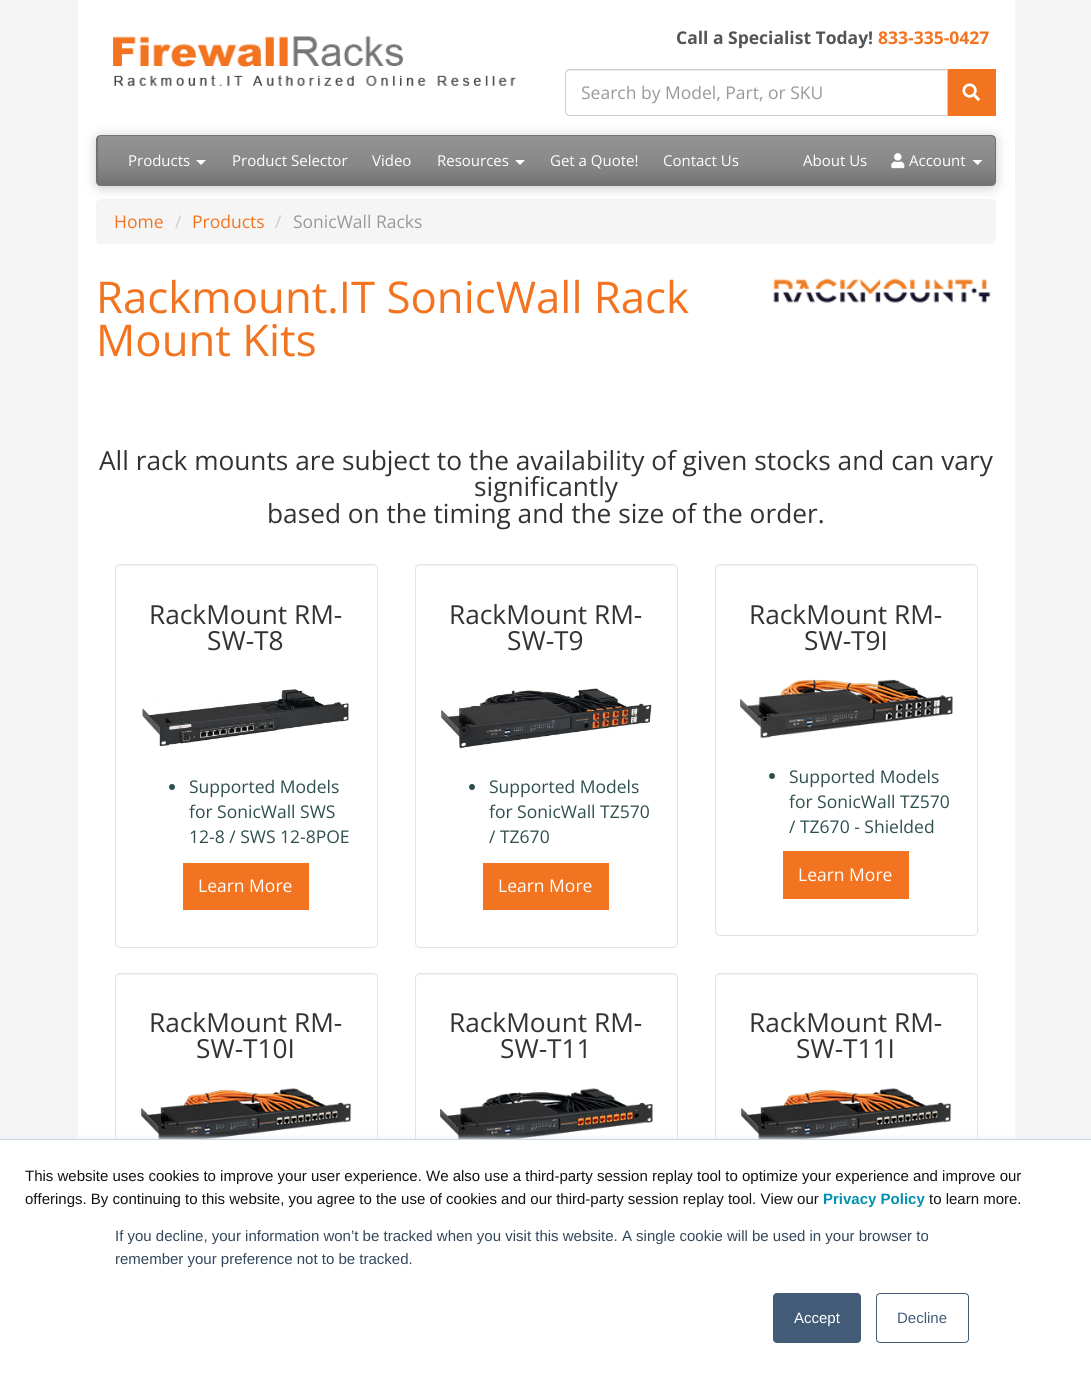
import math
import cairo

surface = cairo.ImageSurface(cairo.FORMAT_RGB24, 1091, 1375)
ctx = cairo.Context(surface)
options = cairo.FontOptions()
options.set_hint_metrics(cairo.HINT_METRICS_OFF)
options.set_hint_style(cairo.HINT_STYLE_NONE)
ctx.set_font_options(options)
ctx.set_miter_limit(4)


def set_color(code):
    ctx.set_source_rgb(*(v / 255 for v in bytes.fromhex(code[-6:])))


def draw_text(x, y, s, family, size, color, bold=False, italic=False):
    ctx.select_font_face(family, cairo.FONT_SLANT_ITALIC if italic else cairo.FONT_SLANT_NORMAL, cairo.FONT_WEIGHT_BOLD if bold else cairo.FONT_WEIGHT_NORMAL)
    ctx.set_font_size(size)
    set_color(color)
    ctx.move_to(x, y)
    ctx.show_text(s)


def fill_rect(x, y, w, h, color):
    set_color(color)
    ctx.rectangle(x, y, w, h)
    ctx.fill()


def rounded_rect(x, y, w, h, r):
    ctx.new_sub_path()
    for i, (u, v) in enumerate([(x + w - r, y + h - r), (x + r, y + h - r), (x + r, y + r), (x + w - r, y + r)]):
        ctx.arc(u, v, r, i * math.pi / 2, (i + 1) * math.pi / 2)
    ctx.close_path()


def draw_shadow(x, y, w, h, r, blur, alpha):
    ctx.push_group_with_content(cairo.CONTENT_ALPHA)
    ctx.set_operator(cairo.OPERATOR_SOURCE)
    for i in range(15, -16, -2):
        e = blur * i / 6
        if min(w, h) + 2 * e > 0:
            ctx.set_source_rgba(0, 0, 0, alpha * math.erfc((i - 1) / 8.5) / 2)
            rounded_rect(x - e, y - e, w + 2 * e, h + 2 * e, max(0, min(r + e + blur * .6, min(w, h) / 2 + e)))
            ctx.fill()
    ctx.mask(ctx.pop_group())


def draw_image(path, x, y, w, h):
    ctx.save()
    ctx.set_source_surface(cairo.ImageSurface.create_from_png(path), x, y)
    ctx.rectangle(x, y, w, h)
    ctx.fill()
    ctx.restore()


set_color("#f5f5f5")
ctx.paint()
fill_rect(78, 0, 937, 1139, "#ffffff")
draw_image("assets/img1.png", 113, 36, 403, 50)
draw_text(676, 44, "Call a Specialist Today!", "Open Sans", 17.5, "#555555", bold=True)
draw_text(878, 44, "833-335-0427", "Open Sans", 17.5, "#f27420", bold=True)
set_color("#ececec")
ctx.new_path()
ctx.move_to(570, 71)
ctx.line_to(946, 71)
ctx.line_to(946, 70)
ctx.line_to(570, 70)
ctx.curve_to(567, 70, 566, 72, 566, 75)
ctx.curve_to(566, 73, 568, 71, 570, 71)
ctx.close_path()
ctx.fill()
ctx.new_path()
ctx.move_to(570, 69.5)
ctx.line_to(947.5, 69.5)
ctx.line_to(947.5, 115.5)
ctx.line_to(570, 115.5)
ctx.curve_to(567.5, 115.5, 565.5, 113.5, 565.5, 111)
ctx.line_to(565.5, 74)
ctx.curve_to(565.5, 71.5, 567.5, 69.5, 570, 69.5)
ctx.close_path()
set_color("#cccccc")
ctx.set_line_width(1)
ctx.stroke()
draw_text(581, 99, "Search by Model, Part, or SKU", "Open Sans", 17.5, "#999999")
fill_rect(948, 69, 48, 47, "#f27420")
draw_image("assets/img2.png", 962, 83, 18, 18)
set_color("#f5f5f5")
rounded_rect(96, 199, 900, 45, 5)
ctx.fill()
set_color("#000000")
draw_shadow(96, 136, 900, 52, 5, 6, 0.2)
ctx.save()
rounded_rect(96, 135, 900, 51, 5)
ctx.clip()
gradient = cairo.LinearGradient(546, 136, 546, 186)
gradient.add_color_stop_rgba(0, 0.58, 0.58, 0.58, 1)
gradient.add_color_stop_rgba(0.6, 0.529, 0.529, 0.529, 1)
gradient.add_color_stop_rgba(1, 0.443, 0.443, 0.443, 1)
ctx.set_source(gradient)
ctx.rectangle(98, 136, 897, 50)
ctx.fill()
ctx.restore()
set_color("#717171")
ctx.set_fill_rule(cairo.FILL_RULE_EVEN_ODD)
ctx.new_path()
ctx.move_to(101, 135)
ctx.line_to(991, 135)
ctx.curve_to(994, 135, 996, 137, 996, 140)
ctx.line_to(996, 181)
ctx.curve_to(996, 184, 994, 186, 991, 186)
ctx.line_to(101, 186)
ctx.curve_to(98, 186, 96, 184, 96, 181)
ctx.line_to(96, 140)
ctx.curve_to(96, 137, 98, 135, 101, 135)
ctx.close_path()
ctx.move_to(101, 136)
ctx.line_to(991, 136)
ctx.curve_to(993, 136, 995, 138, 995, 140)
ctx.line_to(995, 181)
ctx.curve_to(995, 184, 993, 186, 991, 186)
ctx.line_to(101, 186)
ctx.curve_to(99, 186, 98, 184, 98, 181)
ctx.line_to(98, 140)
ctx.curve_to(98, 138, 99, 136, 101, 136)
ctx.close_path()
ctx.fill()
draw_text(128, 166, "Products", "Open Sans", 15, "#ffffff")
ctx.set_fill_rule(cairo.FILL_RULE_WINDING)
ctx.new_path()
ctx.move_to(196, 160)
ctx.line_to(206, 160)
ctx.line_to(201, 165)
ctx.close_path()
ctx.fill()
draw_text(232, 166, "Product Selector", "Open Sans", 15, "#ffffff")
draw_text(372, 166, "Video", "Open Sans", 15, "#ffffff")
draw_text(437, 166, "Resources", "Open Sans", 15, "#ffffff")
ctx.new_path()
ctx.move_to(515, 160)
ctx.line_to(525, 160)
ctx.line_to(520, 165)
ctx.close_path()
ctx.fill()
draw_text(550, 166, "Get a Quote!", "Open Sans", 15, "#ffffff")
draw_text(663, 166, "Contact Us", "Open Sans", 15, "#ffffff")
draw_text(803, 166, "About Us", "Open Sans", 15, "#ffffff")
draw_image("assets/img3.png", 891, 153, 14, 16)
draw_text(909, 166, "Account", "Open Sans", 15, "#ffffff")
ctx.new_path()
ctx.move_to(972.5, 160)
ctx.line_to(982.5, 160)
ctx.line_to(977.5, 165)
ctx.close_path()
ctx.fill()
draw_text(114, 228, "Home", "Open Sans", 17.5, "#f27420")
draw_text(175, 228, "/", "Open Sans", 17.5, "#cccccc")
draw_text(192, 228, "Products", "Open Sans", 17.5, "#f27420")
draw_text(275, 228, "/", "Open Sans", 17.5, "#cccccc")
draw_text(293, 228, "SonicWall Racks", "Open Sans", 17.5, "#999999")
draw_text(96, 313, "Rackmount.IT SonicWall Rack", "Open Sans", 43.75, "#f27420")
draw_text(96, 356, "Mount Kits", "Open Sans", 43.75, "#f27420")
draw_image("assets/img4.png", 773, 278, 218, 25)
draw_text(99, 470, "All rack mounts are subject to the availability of given stocks and can vary", "Open Sans", 26.25, "#333333")
draw_text(474, 496, "significantly", "Open Sans", 26.25, "#333333")
draw_text(267, 523, "based on the timing and the size of the order.", "Open Sans", 26.25, "#333333")
set_color("#f2f2f2")
ctx.new_path()
ctx.move_to(120, 566)
ctx.line_to(372, 566)
ctx.curve_to(375, 566, 376, 568, 376, 570)
ctx.line_to(376, 569)
ctx.curve_to(376, 567, 374, 565, 372, 565)
ctx.line_to(120, 565)
ctx.curve_to(118, 565, 116, 567, 116, 569)
ctx.line_to(116, 570)
ctx.curve_to(116, 568, 118, 566, 120, 566)
ctx.close_path()
ctx.fill()
rounded_rect(115.5, 564.5, 262, 383, 4.5)
set_color("#e3e3e3")
ctx.stroke()
draw_text(149, 624, "RackMount RM-", "Open Sans", 26.25, "#333333")
draw_text(207, 650, "SW-T8", "Open Sans", 26.25, "#333333")
draw_image("assets/img5.png", 142, 689, 207, 58)
set_color("#2f4f4f")
ctx.arc(172, 787, 3, 0, 2 * math.pi)
ctx.fill()
draw_text(189, 793, "Supported Models", "Open Sans", 17.5, "#2f4f4f")
draw_text(189, 818, "for SonicWall SWS", "Open Sans", 17.5, "#2f4f4f")
draw_text(189, 843, "12-8 / SWS 12-8POE", "Open Sans", 17.5, "#2f4f4f")
fill_rect(183, 863, 126, 47, "#f27420")
draw_text(198, 892, "Learn More", "Open Sans", 17.5, "#ffffff")
set_color("#f2f2f2")
ctx.new_path()
ctx.move_to(420, 566)
ctx.line_to(672, 566)
ctx.curve_to(675, 566, 676, 568, 676, 570)
ctx.line_to(676, 569)
ctx.curve_to(676, 567, 674, 565, 672, 565)
ctx.line_to(420, 565)
ctx.curve_to(418, 565, 416, 567, 416, 569)
ctx.line_to(416, 570)
ctx.curve_to(416, 568, 418, 566, 420, 566)
ctx.close_path()
ctx.fill()
rounded_rect(415.5, 564.5, 262, 383, 4.5)
set_color("#e3e3e3")
ctx.stroke()
draw_text(449, 624, "RackMount RM-", "Open Sans", 26.25, "#333333")
draw_text(507, 650, "SW-T9", "Open Sans", 26.25, "#333333")
draw_image("assets/img6.png", 441, 688, 211, 61)
set_color("#2f4f4f")
ctx.arc(472, 787, 3, 0, 2 * math.pi)
ctx.fill()
draw_text(489, 793, "Supported Models", "Open Sans", 17.5, "#2f4f4f")
draw_text(489, 818, "for SonicWall TZ570", "Open Sans", 17.5, "#2f4f4f")
draw_text(489, 843, "/ TZ670", "Open Sans", 17.5, "#2f4f4f")
fill_rect(483, 863, 126, 47, "#f27420")
draw_text(498, 892, "Learn More", "Open Sans", 17.5, "#ffffff")
set_color("#f2f2f2")
ctx.new_path()
ctx.move_to(720, 566)
ctx.line_to(972, 566)
ctx.curve_to(975, 566, 976, 568, 976, 570)
ctx.line_to(976, 569)
ctx.curve_to(976, 567, 974, 565, 972, 565)
ctx.line_to(720, 565)
ctx.curve_to(718, 565, 716, 567, 716, 569)
ctx.line_to(716, 570)
ctx.curve_to(716, 568, 718, 566, 720, 566)
ctx.close_path()
ctx.fill()
rounded_rect(715.5, 564.5, 262, 371, 4.5)
set_color("#e3e3e3")
ctx.stroke()
draw_text(749, 624, "RackMount RM-", "Open Sans", 26.25, "#333333")
draw_text(804, 650, "SW-T9I", "Open Sans", 26.25, "#333333")
draw_image("assets/img7.png", 740, 679, 213, 59)
set_color("#2f4f4f")
ctx.arc(772, 776, 3, 0, 2 * math.pi)
ctx.fill()
draw_text(789, 783, "Supported Models", "Open Sans", 17.5, "#2f4f4f")
draw_text(789, 808, "for SonicWall TZ570", "Open Sans", 17.5, "#2f4f4f")
draw_text(789, 833, "/ TZ670 - Shielded", "Open Sans", 17.5, "#2f4f4f")
fill_rect(783, 851, 126, 48, "#f27420")
draw_text(798, 881, "Learn More", "Open Sans", 17.5, "#ffffff")
set_color("#f2f2f2")
ctx.new_path()
ctx.move_to(120, 975)
ctx.line_to(372, 975)
ctx.curve_to(375, 975, 376, 977, 376, 979)
ctx.line_to(376, 978)
ctx.curve_to(376, 976, 374, 974, 372, 974)
ctx.line_to(120, 974)
ctx.curve_to(118, 974, 116, 976, 116, 978)
ctx.line_to(116, 979)
ctx.curve_to(116, 977, 118, 975, 120, 975)
ctx.close_path()
ctx.fill()
rounded_rect(115.5, 973.5, 262, 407, 4.5)
set_color("#e3e3e3")
ctx.stroke()
draw_text(149, 1032, "RackMount RM-", "Open Sans", 26.25, "#333333")
draw_text(196, 1058, "SW-T10I", "Open Sans", 26.25, "#333333")
draw_image("assets/img8.png", 140, 1088, 212, 51)
set_color("#f2f2f2")
ctx.new_path()
ctx.move_to(420, 975)
ctx.line_to(672, 975)
ctx.curve_to(675, 975, 676, 977, 676, 979)
ctx.line_to(676, 978)
ctx.curve_to(676, 976, 674, 974, 672, 974)
ctx.line_to(420, 974)
ctx.curve_to(418, 974, 416, 976, 416, 978)
ctx.line_to(416, 979)
ctx.curve_to(416, 977, 418, 975, 420, 975)
ctx.close_path()
ctx.fill()
rounded_rect(415.5, 973.5, 262, 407, 4.5)
set_color("#e3e3e3")
ctx.stroke()
draw_text(449, 1032, "RackMount RM-", "Open Sans", 26.25, "#333333")
draw_text(500, 1058, "SW-T11", "Open Sans", 26.25, "#333333")
draw_image("assets/img9.png", 440, 1088, 213, 51)
set_color("#f2f2f2")
ctx.new_path()
ctx.move_to(720, 975)
ctx.line_to(972, 975)
ctx.curve_to(975, 975, 976, 977, 976, 979)
ctx.line_to(976, 978)
ctx.curve_to(976, 976, 974, 974, 972, 974)
ctx.line_to(720, 974)
ctx.curve_to(718, 974, 716, 976, 716, 978)
ctx.line_to(716, 979)
ctx.curve_to(716, 977, 718, 975, 720, 975)
ctx.close_path()
ctx.fill()
rounded_rect(715.5, 973.5, 262, 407, 4.5)
set_color("#e3e3e3")
ctx.stroke()
draw_text(749, 1032, "RackMount RM-", "Open Sans", 26.25, "#333333")
draw_text(796, 1058, "SW-T11I", "Open Sans", 26.25, "#333333")
draw_image("assets/img8.png", 740, 1088, 212, 51)
set_color("#eaf0f6")
draw_shadow(0, 1138, 1091, 236, 0, 2, 1)
fill_rect(0, 1140, 1091, 235, "#ffffff")
fill_rect(0, 1139, 1091, 1, "#cbd6e2")
draw_text(25, 1181, "This website uses cookies to improve your user experience. We also use a third-party session replay tool to optimize your experience and improve our", "Liberation Sans", 15, "#121212")
draw_text(25, 1204, "offerings. By continuing to this website, you agree to the use of cookies and our third-party session replay tool. View our", "Liberation Sans", 15, "#121212")
draw_text(823, 1204, "Privacy Policy", "Liberation Sans", 15, "#0091ae", bold=True)
draw_text(929, 1204, "to learn more.", "Liberation Sans", 15, "#121212")
draw_text(115, 1241, "If you decline, your information won’t be tracked when you visit this website. A single cookie will be used in your browser to", "Liberation Sans", 15, "#33475b")
draw_text(115, 1264, "remember your preference not to be tracked.", "Liberation Sans", 15, "#33475b")
set_color("#425b76")
rounded_rect(773.5, 1293.5, 87, 49, 3.5)
ctx.fill_preserve()
ctx.stroke()
draw_text(794, 1323, "Accept", "Liberation Sans", 15, "#ffffff")
rounded_rect(876.5, 1293.5, 92, 49, 3.5)
set_color("#425b76")
ctx.stroke()
draw_text(897, 1323, "Decline", "Liberation Sans", 15, "#425b76")
surface.write_to_png("output.png")
